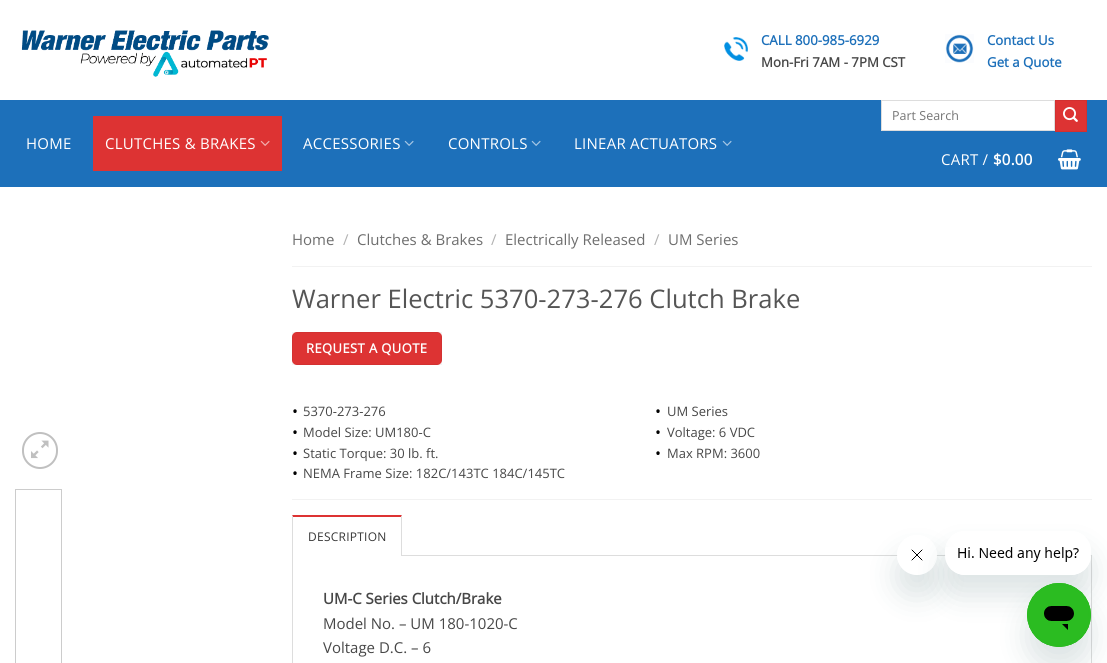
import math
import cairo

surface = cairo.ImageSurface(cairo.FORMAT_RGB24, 1107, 663)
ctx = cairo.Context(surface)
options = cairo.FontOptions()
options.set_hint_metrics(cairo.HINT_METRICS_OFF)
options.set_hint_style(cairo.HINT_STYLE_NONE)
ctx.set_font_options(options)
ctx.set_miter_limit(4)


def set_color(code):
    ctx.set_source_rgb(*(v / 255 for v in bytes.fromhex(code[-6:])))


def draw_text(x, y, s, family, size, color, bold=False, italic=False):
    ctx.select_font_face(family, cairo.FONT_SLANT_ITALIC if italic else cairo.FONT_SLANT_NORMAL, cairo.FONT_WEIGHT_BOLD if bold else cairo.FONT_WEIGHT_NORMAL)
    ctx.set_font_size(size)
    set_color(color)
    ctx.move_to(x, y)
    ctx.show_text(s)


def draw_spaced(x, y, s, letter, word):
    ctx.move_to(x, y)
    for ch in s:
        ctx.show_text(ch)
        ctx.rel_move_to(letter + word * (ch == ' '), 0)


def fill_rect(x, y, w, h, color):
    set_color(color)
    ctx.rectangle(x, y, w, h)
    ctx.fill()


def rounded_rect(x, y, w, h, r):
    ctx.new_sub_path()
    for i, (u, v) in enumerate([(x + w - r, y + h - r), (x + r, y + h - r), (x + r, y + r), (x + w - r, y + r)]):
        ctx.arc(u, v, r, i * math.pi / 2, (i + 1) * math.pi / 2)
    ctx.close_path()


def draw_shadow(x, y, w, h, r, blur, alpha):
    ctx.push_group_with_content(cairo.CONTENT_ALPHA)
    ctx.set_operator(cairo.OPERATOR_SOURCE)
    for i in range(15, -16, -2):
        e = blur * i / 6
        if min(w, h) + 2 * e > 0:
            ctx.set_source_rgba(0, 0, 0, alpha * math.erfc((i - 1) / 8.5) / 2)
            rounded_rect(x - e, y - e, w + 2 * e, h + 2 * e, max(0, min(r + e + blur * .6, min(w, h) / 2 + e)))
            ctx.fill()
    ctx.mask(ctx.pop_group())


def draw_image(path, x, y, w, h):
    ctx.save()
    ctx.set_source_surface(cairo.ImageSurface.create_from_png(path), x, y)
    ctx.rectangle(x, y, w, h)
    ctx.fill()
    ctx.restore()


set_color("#ffffff")
ctx.paint()
draw_image("assets/img1.png", 21, 30, 248, 47)
draw_image("assets/img2.png", 724, 37, 24, 24)
draw_text(761, 45, "CALL 800-985-6929", "Open Sans", 13.25, "#1d70ba", bold=True)
draw_text(761, 67, "Mon-Fri 7AM - 7PM CST", "Open Sans", 13.25, "#474747", bold=True)
draw_image("assets/img3.png", 945, 34, 29, 29)
draw_text(987, 45, "Contact Us", "Open Sans", 13.25, "#1d70ba", bold=True)
draw_text(987, 67, "Get a Quote", "Open Sans", 13.25, "#1d70ba", bold=True)
fill_rect(0, 100, 1107, 87, "#1d70ba")
ctx.select_font_face("Open Sans")
ctx.set_font_size(15)
set_color("#ffffff")
draw_spaced(26, 149, "HOME", 0.25, 0)
fill_rect(93, 116, 189, 55, "#dd3333")
set_color("#ffffff")
draw_spaced(105, 149, "CLUTCHES & BRAKES", 0.25, 0)
draw_image("assets/img4.png", 260, 140, 10, 6)
draw_spaced(303, 149, "ACCESSORIES", 0.25, 0)
draw_image("assets/img5.png", 404, 140, 10, 6)
draw_spaced(448, 149, "CONTROLS", 0.25, 0)
draw_image("assets/img5.png", 531, 140, 10, 6)
draw_spaced(574, 149, "LINEAR ACTUATORS", 0.25, 0)
draw_image("assets/img5.png", 722, 140, 10, 6)
ctx.rectangle(881.5, 100.5, 173, 30)
ctx.fill_preserve()
set_color("#dddddd")
ctx.set_line_width(1)
ctx.stroke()
draw_text(892, 120, "Part Search", "Open Sans", 12.5, "#757575")
set_color("#dd3333")
ctx.rectangle(1055.5, 100.5, 31, 31)
ctx.fill_preserve()
set_color("#d23030")
ctx.stroke()
draw_image("assets/img6.png", 1063, 107, 15, 15)
ctx.set_font_size(15)
set_color("#ffffff")
draw_spaced(941, 165, "CART /", 0.25, 0)
ctx.select_font_face("Open Sans", cairo.FONT_SLANT_NORMAL, cairo.FONT_WEIGHT_BOLD)
draw_spaced(993, 165, "$0.00", 0.25, 0)
draw_image("assets/img7.png", 1058, 149, 23, 21)
rounded_rect(23, 433, 34, 35, 17)
set_color("#c0c0c0")
ctx.set_line_width(2)
ctx.stroke()
draw_image("assets/img8.png", 31, 440, 18, 19)
ctx.rectangle(15.5, 489.5, 46, 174)
set_color("#cccccc")
ctx.set_line_width(1)
ctx.stroke()
draw_text(292, 245, "Home", "Open Sans", 15, "#6e6e6e")
draw_text(343, 245, "/", "Open Sans", 15, "#b2b2b2")
draw_text(357, 245, "Clutches & Brakes", "Open Sans", 15, "#6e6e6e")
draw_text(491, 245, "/", "Open Sans", 15, "#b2b2b2")
draw_text(505, 245, "Electrically Released", "Open Sans", 15, "#6e6e6e")
draw_text(654, 245, "/", "Open Sans", 15, "#b2b2b2")
draw_text(668, 245, "UM Series", "Open Sans", 15, "#6e6e6e")
fill_rect(292, 266, 800, 1, "#f2f2f2")
draw_text(292, 308, "Warner Electric 5370-273-276 Clutch Brake", "Open Sans", 25.6, "#555555")
set_color("#dd3333")
rounded_rect(292, 332, 150, 33, 5)
ctx.fill()
ctx.rectangle(292.5, 332.5, 149, 32)
ctx.set_source_rgba(0, 0, 0, 0.05)
ctx.stroke()
ctx.select_font_face("Open Sans", cairo.FONT_SLANT_NORMAL, cairo.FONT_WEIGHT_BOLD)
ctx.set_font_size(13)
set_color("#ffffff")
draw_spaced(306, 353, "REQUEST A QUOTE", 0.4, 0)
draw_text(292, 417, "•", "Open Sans", 16, "#000000")
draw_text(303, 416, "5370-273-276", "Open Sans", 13, "#474747")
draw_text(655, 417, "•", "Open Sans", 16, "#000000")
draw_text(667, 416, "UM Series", "Open Sans", 13, "#474747")
draw_text(292, 438, "•", "Open Sans", 16, "#000000")
draw_text(303, 437, "Model Size: UM180-C", "Open Sans", 13, "#474747")
draw_text(655, 438, "•", "Open Sans", 16, "#000000")
draw_text(667, 437, "Voltage: 6 VDC", "Open Sans", 13, "#474747")
draw_text(292, 459, "•", "Open Sans", 16, "#000000")
draw_text(303, 458, "Static Torque: 30 lb. ft.", "Open Sans", 13, "#474747")
draw_text(655, 459, "•", "Open Sans", 16, "#000000")
draw_text(667, 458, "Max RPM: 3600", "Open Sans", 13, "#474747")
draw_text(292, 479, "•", "Open Sans", 16, "#000000")
draw_text(303, 478, "NEMA Frame Size: 182C/143TC 184C/145TC", "Open Sans", 13, "#474747")
fill_rect(292, 499, 800, 1, "#f2f2f2")
ctx.rectangle(292.5, 555.5, 799, 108)
set_color("#dddddd")
ctx.stroke()
fill_rect(292, 555, 110, 1, "#ffffff")
set_color("#dd3333")
ctx.new_path()
ctx.move_to(292, 515)
ctx.line_to(402, 515)
ctx.line_to(401, 517)
ctx.line_to(293, 517)
ctx.close_path()
ctx.fill()
set_color("#dddddd")
ctx.new_path()
ctx.move_to(402, 515)
ctx.line_to(402, 556)
ctx.line_to(401, 556)
ctx.line_to(401, 517)
ctx.close_path()
ctx.fill()
ctx.new_path()
ctx.move_to(292, 556)
ctx.line_to(292, 515)
ctx.line_to(293, 517)
ctx.line_to(293, 556)
ctx.close_path()
ctx.fill()
ctx.set_font_size(12)
set_color("#363636")
draw_spaced(308, 541, "DESCRIPTION", 0.25, 0)
draw_text(323, 604, "UM-C Series Clutch/Brake", "Open Sans", 15, "#474747", bold=True)
draw_text(323, 629, "Model No. – UM 180-1020-C", "Open Sans", 15, "#474747")
draw_text(323, 653, "Voltage D.C. – 6", "Open Sans", 15, "#474747")
ctx.save()
ctx.set_fill_rule(cairo.FILL_RULE_EVEN_ODD)
ctx.new_path()
ctx.move_to(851, 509)
ctx.line_to(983, 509)
ctx.line_to(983, 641)
ctx.line_to(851, 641)
ctx.close_path()
ctx.move_to(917, 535)
ctx.curve_to(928, 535, 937, 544, 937, 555)
ctx.curve_to(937, 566, 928, 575, 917, 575)
ctx.curve_to(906, 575, 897, 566, 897, 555)
ctx.curve_to(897, 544, 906, 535, 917, 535)
ctx.close_path()
ctx.clip()
set_color("#17494d")
draw_shadow(897, 555, 40, 40, 20, 15, 0.15)
ctx.restore()
draw_image("assets/img10.png", 897, 549, 40, 12)
ctx.save()
ctx.set_fill_rule(cairo.FILL_RULE_EVEN_ODD)
ctx.new_path()
ctx.move_to(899, 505)
ctx.line_to(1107, 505)
ctx.line_to(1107, 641)
ctx.line_to(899, 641)
ctx.close_path()
ctx.move_to(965, 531)
ctx.line_to(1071, 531)
ctx.curve_to(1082, 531, 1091, 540, 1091, 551)
ctx.line_to(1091, 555)
ctx.curve_to(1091, 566, 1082, 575, 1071, 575)
ctx.line_to(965, 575)
ctx.curve_to(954, 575, 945, 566, 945, 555)
ctx.line_to(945, 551)
ctx.curve_to(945, 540, 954, 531, 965, 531)
ctx.close_path()
ctx.clip()
set_color("#17494d")
draw_shadow(945, 551, 146, 44, 20, 15, 0.15)
ctx.restore()
draw_image("assets/img9.png", 945, 547, 146, 28)
set_color("#17494d")
draw_shadow(1027, 603, 64, 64, 32, 15, 0.15)
draw_image("assets/img11.png", 1027, 583, 64, 64)
surface.write_to_png("output.png")
